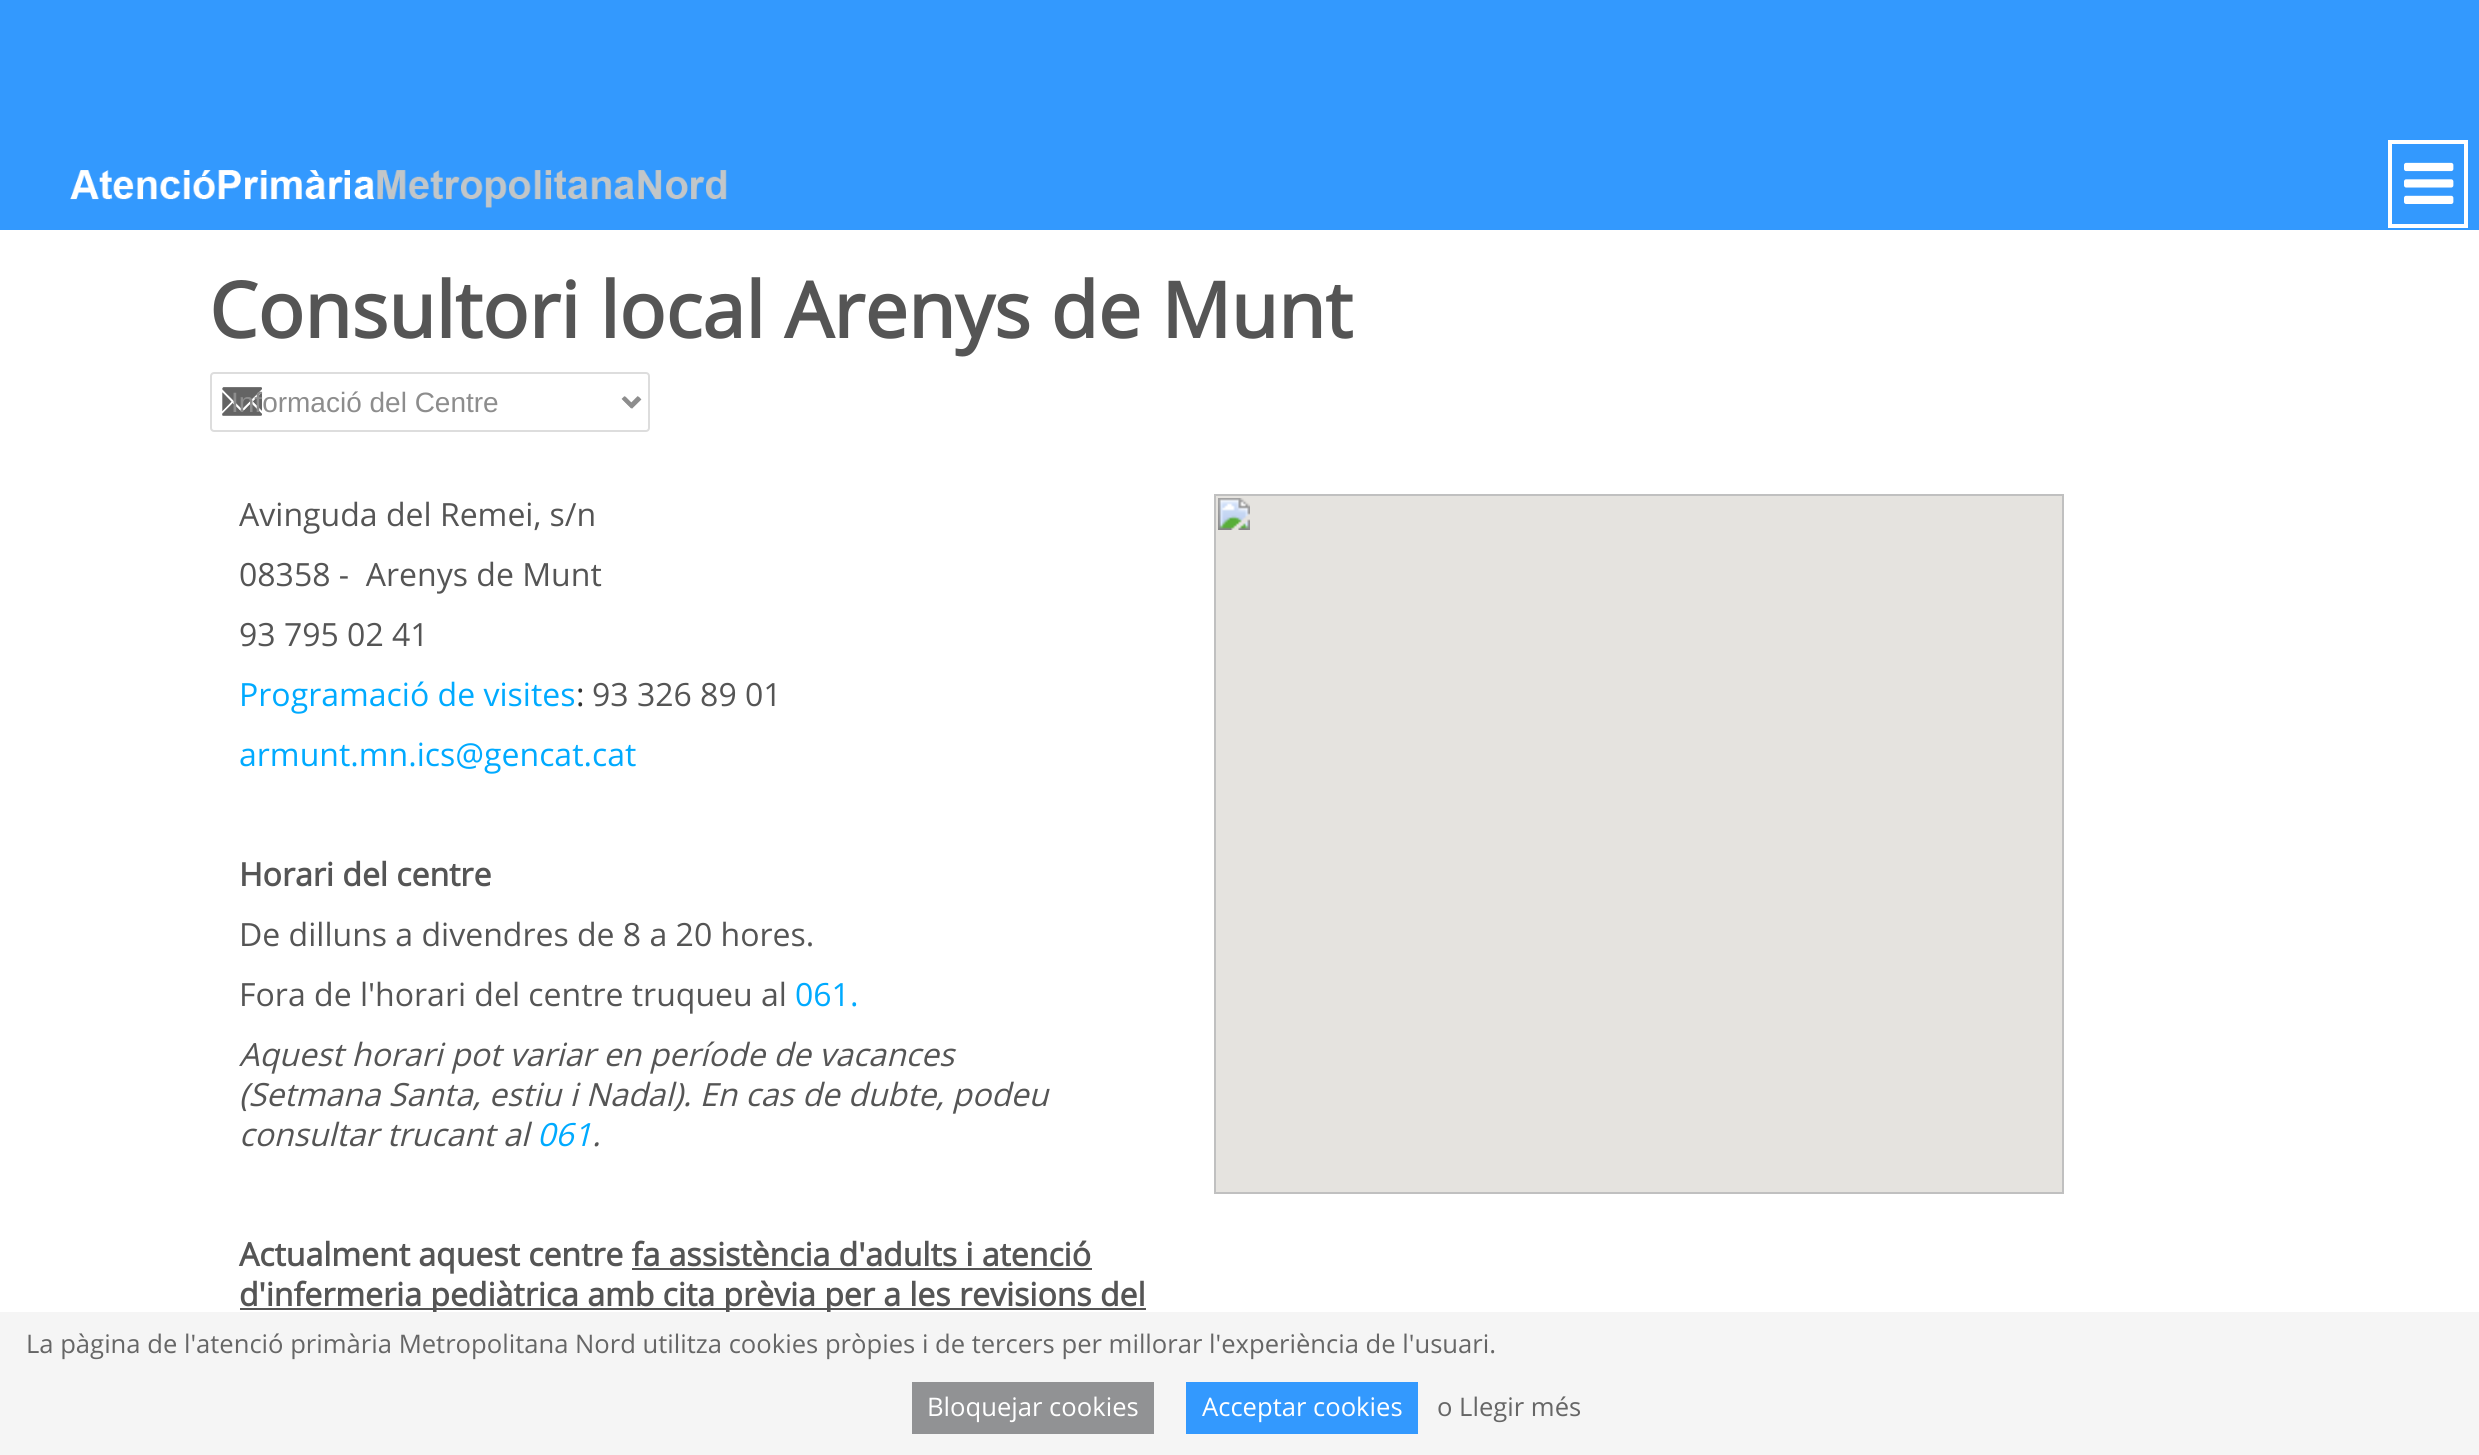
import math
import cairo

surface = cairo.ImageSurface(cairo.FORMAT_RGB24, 2479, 1455)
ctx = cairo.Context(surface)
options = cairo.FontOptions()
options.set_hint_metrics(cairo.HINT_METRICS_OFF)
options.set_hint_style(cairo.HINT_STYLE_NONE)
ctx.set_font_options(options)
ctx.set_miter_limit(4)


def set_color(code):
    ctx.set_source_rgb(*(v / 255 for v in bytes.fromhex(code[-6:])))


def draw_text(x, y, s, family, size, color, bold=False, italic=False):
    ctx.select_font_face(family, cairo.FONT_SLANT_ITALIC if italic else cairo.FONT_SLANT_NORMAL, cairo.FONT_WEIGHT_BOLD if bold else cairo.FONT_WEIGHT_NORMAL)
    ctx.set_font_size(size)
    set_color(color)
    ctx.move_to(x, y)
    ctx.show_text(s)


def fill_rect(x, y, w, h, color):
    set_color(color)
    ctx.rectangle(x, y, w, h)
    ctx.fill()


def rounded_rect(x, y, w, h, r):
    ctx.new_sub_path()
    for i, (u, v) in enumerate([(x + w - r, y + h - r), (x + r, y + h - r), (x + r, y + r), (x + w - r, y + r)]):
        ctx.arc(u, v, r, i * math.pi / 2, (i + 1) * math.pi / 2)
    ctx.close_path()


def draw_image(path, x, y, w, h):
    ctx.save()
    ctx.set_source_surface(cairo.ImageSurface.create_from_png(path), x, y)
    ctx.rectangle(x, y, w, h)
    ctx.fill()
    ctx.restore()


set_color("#ffffff")
ctx.paint()
fill_rect(0, 0, 2479, 230, "#3399fe")
draw_image("assets/img1.png", 70, 170, 657, 38)
ctx.rectangle(2390, 142, 76, 84)
set_color("#ffffff")
ctx.set_line_width(4)
ctx.stroke()
draw_image("assets/img2.png", 2404, 162, 50, 42)
draw_text(209, 338, "Consultori local Arenys de Munt", "Open Sans", 77, "#555555", bold=True)
draw_image("assets/img3.png", 222, 387, 420, 29)
rounded_rect(211, 373, 438, 58, 3)
set_color("#dddddd")
ctx.set_line_width(2)
ctx.stroke()
ctx.new_path()
ctx.move_to(623, 397.5)
ctx.line_to(631, 405.5)
ctx.line_to(639, 397.5)
set_color("#8d8d8d")
ctx.set_line_width(4)
ctx.stroke()
draw_text(231, 412, "Informació del Centre", "Liberation Sans", 28, "#8d8d8d")
draw_text(239, 526, "Avinguda del Remei, s/n", "Open Sans", 32, "#555555")
draw_text(239, 586, "08358 -  Arenys de Munt", "Open Sans", 32, "#555555")
draw_text(239, 646, "93 795 02 41", "Open Sans", 32, "#555555")
draw_text(239, 706, "Programació de visites", "Open Sans", 32, "#00aaff")
draw_text(576, 706, ":", "Open Sans", 32, "#333333")
draw_text(592, 706, "93 326 89 01", "Open Sans", 32, "#555555")
draw_text(239, 766, "armunt.mn.ics@gencat.cat", "Open Sans", 32, "#00aaff")
draw_text(239, 886, "Horari del centre", "Open Sans", 32, "#555555", bold=True)
draw_text(239, 946, "De dilluns a divendres de 8 a 20 hores.", "Open Sans", 32, "#555555")
draw_text(239, 1006, "Fora de l'horari del centre truqueu al", "Open Sans", 32, "#555555")
draw_text(795, 1006, "061.", "Open Sans", 32, "#00aaff")
draw_text(239, 1066, "Aquest horari pot variar en període de vacances", "Open Sans", 32, "#555555", italic=True)
draw_text(239, 1106, "(Setmana Santa, estiu i Nadal). En cas de dubte, podeu", "Open Sans", 32, "#555555", italic=True)
draw_text(239, 1146, "consultar trucant al", "Open Sans", 32, "#555555", italic=True)
draw_text(537, 1146, "061", "Open Sans", 32, "#00aaff", italic=True)
draw_text(592, 1146, ".", "Open Sans", 32, "#555555", italic=True)
draw_text(239, 1266, "Actualment aquest centre fa assistència d'adults i atenció", "Open Sans", 32, "#555555", bold=True)
fill_rect(632, 1268, 460, 2, "#555555")
fill_rect(240, 1308, 906, 2, "#555555")
draw_text(239, 1306, "d'infermeria pediàtrica amb cita prèvia per a les revisions del", "Open Sans", 32, "#555555", bold=True)
draw_image("assets/img4.png", 1214, 494, 850, 700)
fill_rect(0, 1312, 2479, 143, "#f5f5f5")
draw_text(26, 1353, "La pàgina de l'atenció primària Metropolitana Nord utilitza cookies pròpies i de tercers per millorar l'experiència de l'usuari.", "Open Sans", 25.6, "#666666")
fill_rect(912, 1382, 242, 52, "#919294")
draw_text(927, 1416, "Bloquejar cookies", "Open Sans", 25.6, "#ffffff")
fill_rect(1186, 1382, 232, 52, "#3399fe")
draw_text(1202, 1416, "Acceptar cookies", "Open Sans", 25.6, "#ffffff")
draw_text(1437, 1416, "o Llegir més", "Open Sans", 25.6, "#666666")
surface.write_to_png("output.png")
